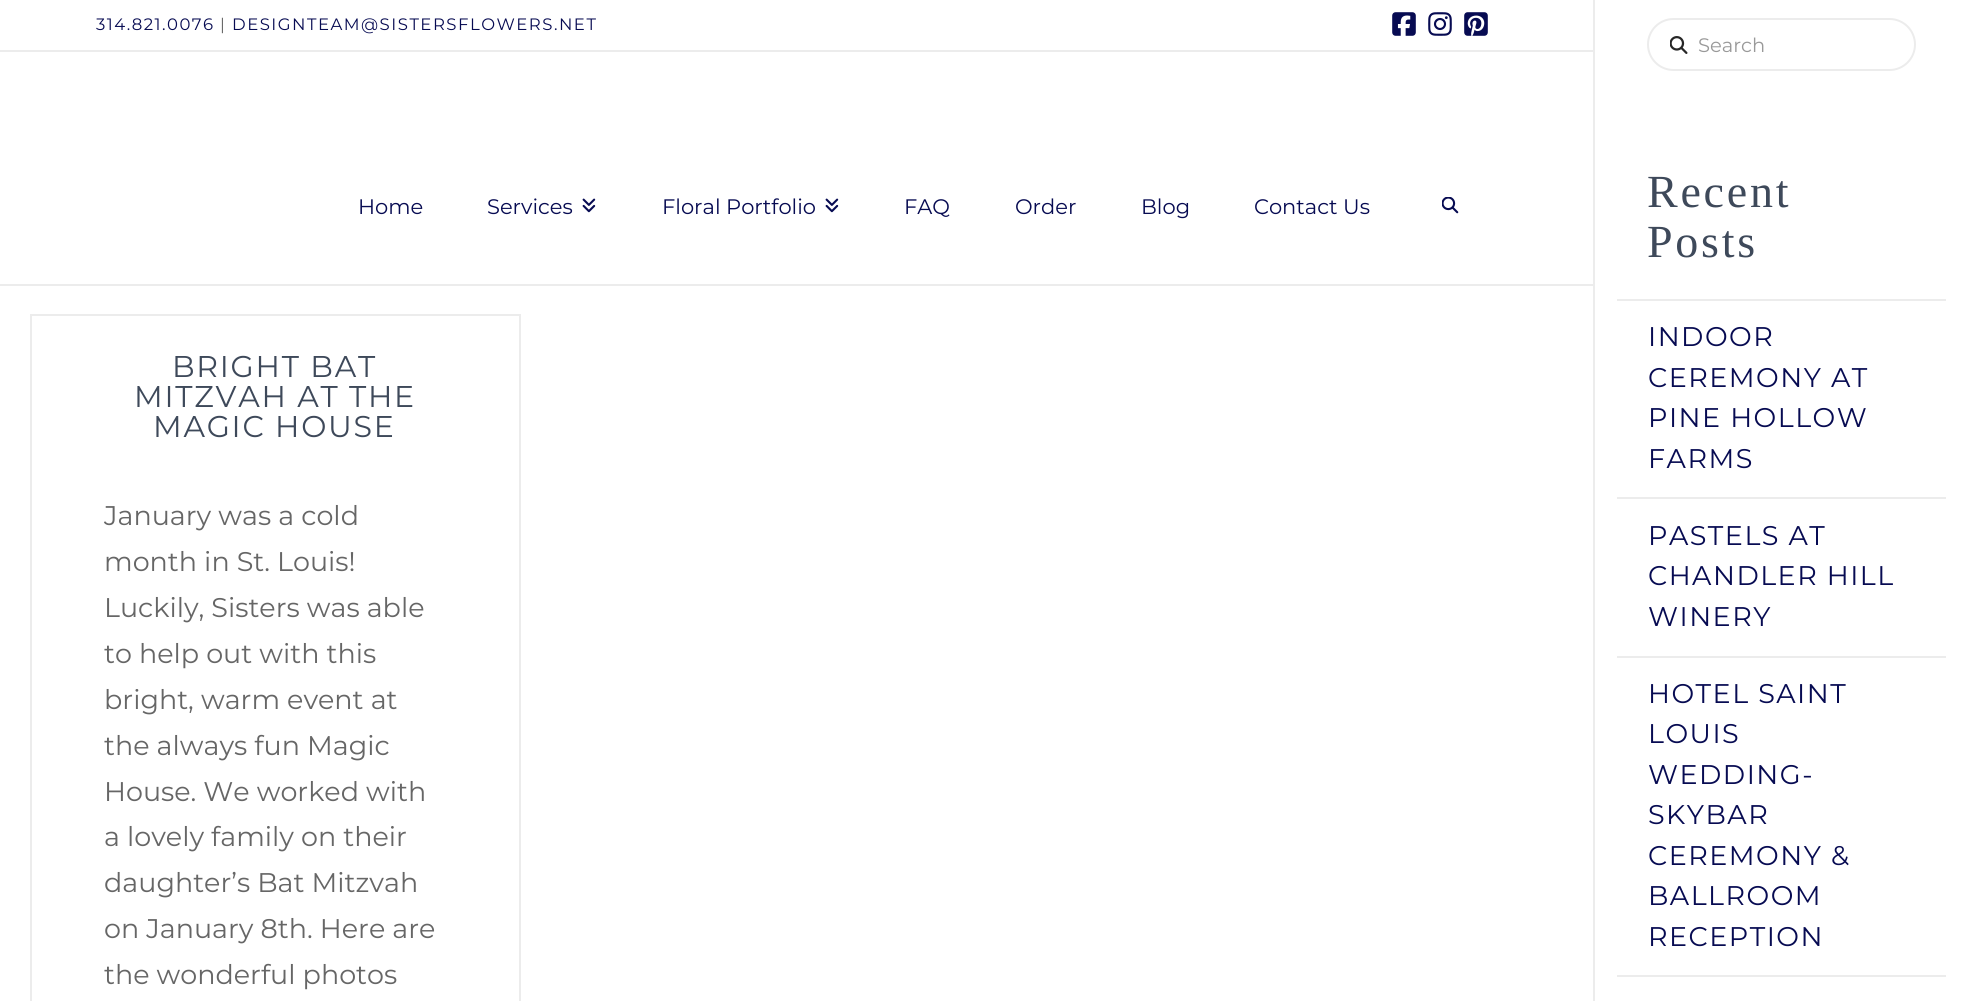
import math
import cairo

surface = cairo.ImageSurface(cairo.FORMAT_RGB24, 1967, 1001)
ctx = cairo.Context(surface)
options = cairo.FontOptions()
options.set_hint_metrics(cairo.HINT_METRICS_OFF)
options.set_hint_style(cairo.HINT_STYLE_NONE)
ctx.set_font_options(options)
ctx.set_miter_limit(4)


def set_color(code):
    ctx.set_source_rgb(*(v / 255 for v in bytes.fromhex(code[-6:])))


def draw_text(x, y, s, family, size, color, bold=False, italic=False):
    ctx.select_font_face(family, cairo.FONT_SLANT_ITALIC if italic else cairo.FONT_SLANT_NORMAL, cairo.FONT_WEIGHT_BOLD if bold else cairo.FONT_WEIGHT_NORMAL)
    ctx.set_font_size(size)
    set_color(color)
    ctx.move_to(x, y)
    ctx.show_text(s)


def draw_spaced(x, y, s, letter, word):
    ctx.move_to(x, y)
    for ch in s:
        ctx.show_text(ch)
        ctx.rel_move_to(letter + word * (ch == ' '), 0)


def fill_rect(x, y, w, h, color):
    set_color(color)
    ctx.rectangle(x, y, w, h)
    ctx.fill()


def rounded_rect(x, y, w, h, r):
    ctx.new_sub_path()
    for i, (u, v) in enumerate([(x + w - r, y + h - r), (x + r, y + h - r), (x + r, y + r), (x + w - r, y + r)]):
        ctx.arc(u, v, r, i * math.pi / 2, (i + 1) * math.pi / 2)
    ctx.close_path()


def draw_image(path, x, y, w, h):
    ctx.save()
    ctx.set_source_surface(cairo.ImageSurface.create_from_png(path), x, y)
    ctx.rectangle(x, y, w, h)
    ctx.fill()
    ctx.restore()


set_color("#ffffff")
ctx.paint()
fill_rect(0, 50, 1593, 2, "#ececec")
ctx.select_font_face("Montserrat")
ctx.set_font_size(16.5)
set_color("#070b52")
draw_spaced(96, 30, "314.821.0076", 1.5, 0)
set_color("#666666")
draw_spaced(220, 30, "|", 1.5, 0)
set_color("#070b52")
draw_spaced(232, 30, "DESIGNTEAM@SISTERSFLOWERS.NET", 1.5, 0)
draw_image("assets/img1.png", 1392, 12, 24, 24)
draw_image("assets/img2.png", 1428, 12, 24, 24)
draw_image("assets/img3.png", 1464, 12, 24, 24)
fill_rect(0, 284, 1593, 2, "#ececec")
draw_text(358, 214, "Home", "Montserrat", 21, "#070b52")
draw_text(487, 214, "Services", "Montserrat", 21, "#070b52")
draw_image("assets/img4.png", 582, 198, 14, 15)
draw_text(662, 214, "Floral Portfolio", "Montserrat", 21, "#070b52")
draw_image("assets/img4.png", 825, 198, 14, 15)
draw_text(904, 214, "FAQ", "Montserrat", 21, "#070b52")
draw_text(1015, 214, "Order", "Montserrat", 21, "#070b52")
draw_text(1141, 214, "Blog", "Montserrat", 21, "#070b52")
draw_text(1254, 214, "Contact Us", "Montserrat", 21, "#070b52")
draw_image("assets/img5.png", 1442, 197, 17, 17)
fill_rect(1593, 0, 2, 1001, "#ececec")
rounded_rect(1648, 19, 267, 51, 25.5)
ctx.stroke()
draw_image("assets/img6.png", 1670, 36, 18, 18)
draw_text(1698, 52, "Search", "Montserrat", 19.5, "#999999")
ctx.select_font_face("Liberation Serif")
ctx.set_font_size(46)
set_color("#3e495a")
draw_spaced(1647, 207, "Recent", 2.75, 0)
draw_spaced(1647, 257, "Posts", 2.75, 0)
fill_rect(1617, 299, 329, 2, "#ececec")
fill_rect(1617, 497, 329, 2, "#ececec")
ctx.select_font_face("Montserrat")
ctx.set_font_size(27)
set_color("#070b52")
draw_spaced(1648, 346, "INDOOR", 1.5, 0)
draw_spaced(1648, 387, "CEREMONY AT", 1.5, 0)
draw_spaced(1648, 427, "PINE HOLLOW", 1.5, 0)
draw_spaced(1648, 468, "FARMS", 1.5, 0)
fill_rect(1617, 656, 329, 2, "#ececec")
set_color("#070b52")
draw_spaced(1648, 545, "PASTELS AT", 1.5, 0)
draw_spaced(1648, 585, "CHANDLER HILL", 1.5, 0)
draw_spaced(1648, 626, "WINERY", 1.5, 0)
fill_rect(1617, 975, 329, 2, "#ececec")
set_color("#070b52")
draw_spaced(1648, 703, "HOTEL SAINT", 1.5, 0)
draw_spaced(1648, 743, "LOUIS", 1.5, 0)
draw_spaced(1648, 784, "WEDDING-", 1.5, 0)
draw_spaced(1648, 824, "SKYBAR", 1.5, 0)
draw_spaced(1648, 865, "CEREMONY &", 1.5, 0)
draw_spaced(1648, 905, "BALLROOM", 1.5, 0)
draw_spaced(1648, 946, "RECEPTION", 1.5, 0)
ctx.rectangle(31, 315, 489, 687)
set_color("#ececec")
ctx.stroke()
ctx.set_font_size(30)
set_color("#3e495a")
draw_spaced(172, 377, "BRIGHT BAT", 1.75, 0)
draw_spaced(134, 407, "MITZVAH AT THE", 1.75, 0)
draw_spaced(153, 437, "MAGIC HOUSE", 1.75, 0)
draw_text(104, 525, "January was a cold", "Montserrat", 27, "#666666")
draw_text(104, 571, "month in St. Louis!", "Montserrat", 27, "#666666")
draw_text(104, 617, "Luckily, Sisters was able", "Montserrat", 27, "#666666")
draw_text(104, 663, "to help out with this", "Montserrat", 27, "#666666")
draw_text(104, 709, "bright, warm event at", "Montserrat", 27, "#666666")
draw_text(104, 755, "the always fun Magic", "Montserrat", 27, "#666666")
draw_text(104, 801, "House. We worked with", "Montserrat", 27, "#666666")
draw_text(104, 846, "a lovely family on their", "Montserrat", 27, "#666666")
draw_text(104, 892, "daughter’s Bat Mitzvah", "Montserrat", 27, "#666666")
draw_text(104, 938, "on January 8th. Here are", "Montserrat", 27, "#666666")
draw_text(104, 984, "the wonderful photos", "Montserrat", 27, "#666666")
surface.write_to_png("output.png")
